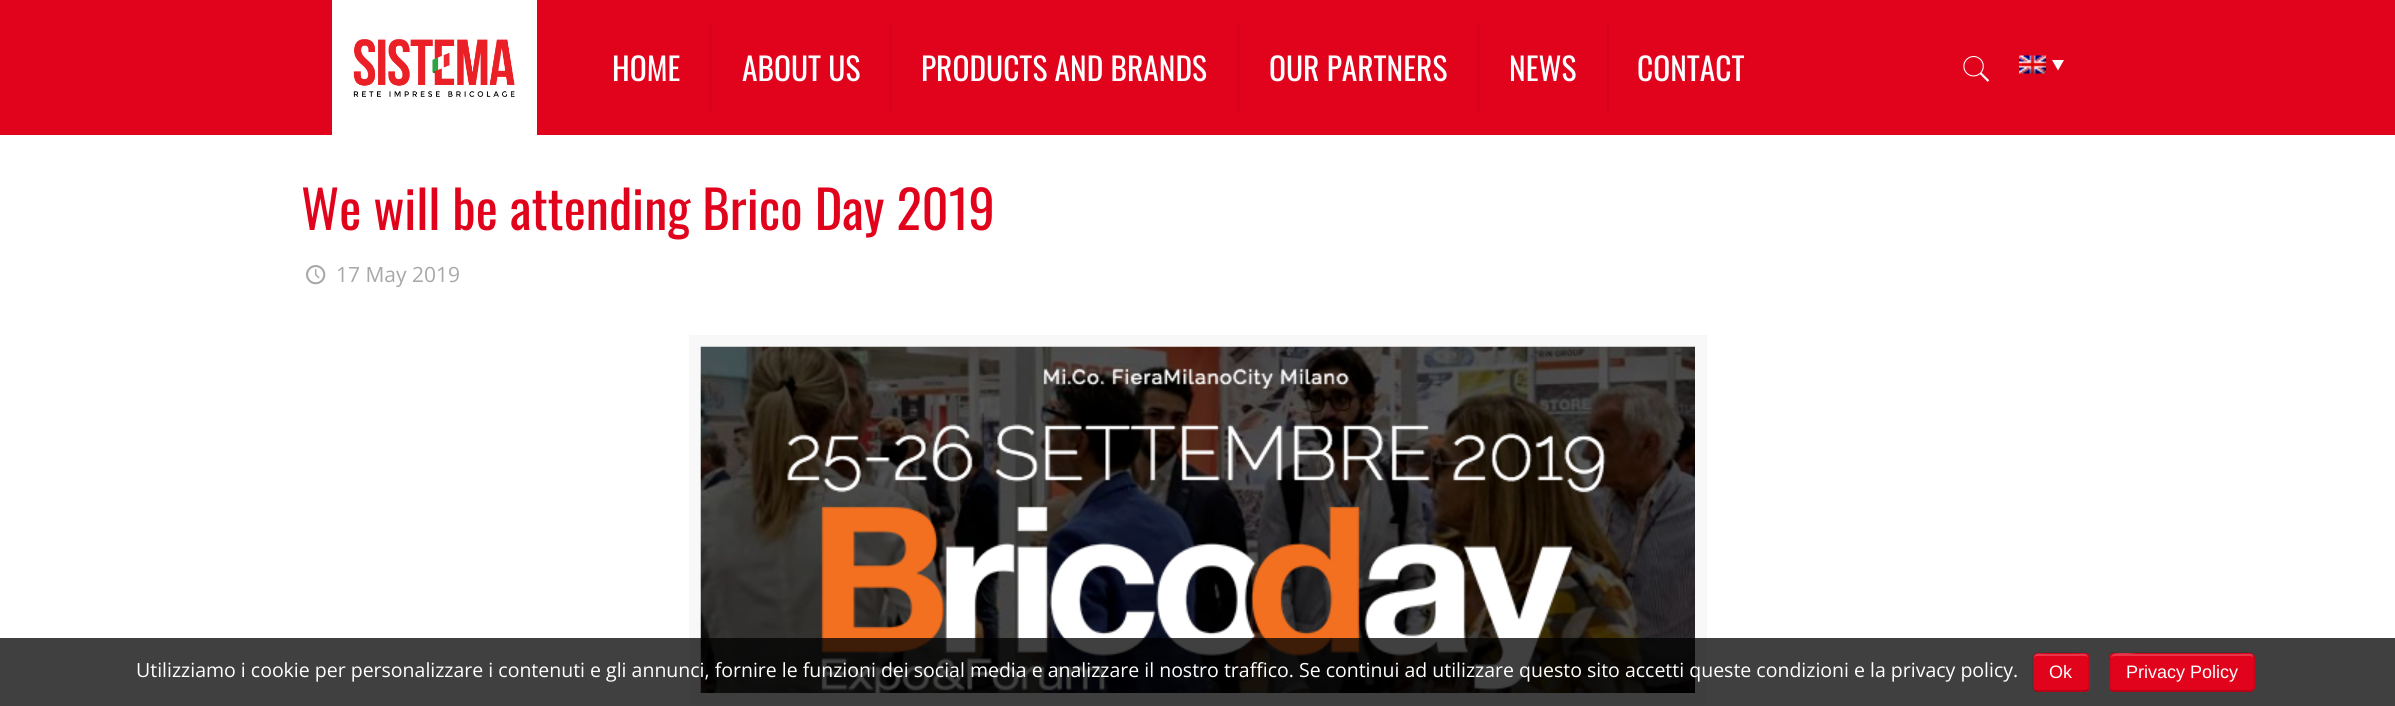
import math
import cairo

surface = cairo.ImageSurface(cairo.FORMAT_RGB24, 2395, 706)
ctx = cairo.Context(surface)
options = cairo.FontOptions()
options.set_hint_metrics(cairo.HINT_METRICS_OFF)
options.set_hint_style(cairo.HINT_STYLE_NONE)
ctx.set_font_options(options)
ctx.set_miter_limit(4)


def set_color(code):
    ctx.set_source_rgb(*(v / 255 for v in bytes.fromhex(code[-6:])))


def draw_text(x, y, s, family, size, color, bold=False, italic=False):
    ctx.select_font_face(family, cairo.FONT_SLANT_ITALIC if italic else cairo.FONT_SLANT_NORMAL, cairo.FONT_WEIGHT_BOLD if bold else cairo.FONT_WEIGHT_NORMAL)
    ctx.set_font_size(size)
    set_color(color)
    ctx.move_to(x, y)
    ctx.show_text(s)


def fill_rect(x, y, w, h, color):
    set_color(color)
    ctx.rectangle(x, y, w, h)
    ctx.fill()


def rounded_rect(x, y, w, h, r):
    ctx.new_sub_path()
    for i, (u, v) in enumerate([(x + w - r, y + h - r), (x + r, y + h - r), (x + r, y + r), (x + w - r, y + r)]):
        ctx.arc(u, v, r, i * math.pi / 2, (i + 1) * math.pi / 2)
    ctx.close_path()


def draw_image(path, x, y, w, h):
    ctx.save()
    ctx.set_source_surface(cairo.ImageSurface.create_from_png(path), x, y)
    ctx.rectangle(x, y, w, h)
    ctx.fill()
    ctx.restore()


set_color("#ffffff")
ctx.paint()
fill_rect(0, 0, 2395, 135, "#e1031c")
fill_rect(332, 0, 205, 135, "#ffffff")
draw_image("assets/img1.png", 353, 39, 162, 58)
fill_rect(710, 23, 2, 90, "#d6031b")
draw_text(612, 81, "HOME", "Oswald", 31.5, "#ffffff")
fill_rect(890, 23, 2, 90, "#d6031b")
draw_text(742, 81, "ABOUT US", "Oswald", 31.5, "#ffffff")
fill_rect(1238, 23, 2, 90, "#d6031b")
draw_text(921, 81, "PRODUCTS AND BRANDS", "Oswald", 31.5, "#ffffff")
fill_rect(1478, 23, 2, 90, "#d6031b")
draw_text(1269, 81, "OUR PARTNERS", "Oswald", 31.5, "#ffffff")
fill_rect(1607, 23, 2, 90, "#d6031b")
draw_text(1509, 81, "NEWS", "Oswald", 31.5, "#ffffff")
draw_text(1637, 81, "CONTACT", "Oswald", 31.5, "#ffffff")
draw_image("assets/img2.png", 1963, 56, 27, 26)
draw_image("assets/img3.png", 2019, 55, 27, 19)
ctx.new_path()
ctx.move_to(2052, 60)
ctx.line_to(2064, 60)
ctx.line_to(2058, 70.5)
ctx.close_path()
ctx.fill()
draw_text(301, 230, "We will be attending Brico Day 2019", "Oswald", 52.5, "#e1031c")
draw_image("assets/img4.png", 306, 265, 20, 20)
draw_text(336, 282, "17 May 2019", "Open Sans", 21, "#a8a8a8")
ctx.rectangle(695, 341, 1006, 358)
set_color("#f8f8f8")
ctx.set_line_width(12)
ctx.stroke()
draw_image("assets/img5.png", 700, 346, 995, 347)
ctx.set_source_rgba(0, 0, 0, 0.75)
ctx.rectangle(0, 638, 2395, 68)
ctx.fill()
draw_text(136, 677, "Utilizziamo i cookie per personalizzare i contenuti e gli annunci, fornire le funzioni dei social media e analizzare il nostro traffico. Se continui ad utilizzare questo sito accetti queste condizioni e la privacy policy.", "Open Sans", 19.5, "#ffffff")
set_color("#e1031c")
rounded_rect(2033, 653, 57, 39, 5)
ctx.fill()
set_color("#e73549")
ctx.new_path()
ctx.move_to(2037, 656)
ctx.line_to(2085, 656)
ctx.curve_to(2087, 656, 2088, 657, 2088, 658)
ctx.curve_to(2088, 652, 2081, 654, 2077, 654)
ctx.line_to(2045, 654)
ctx.curve_to(2041, 654, 2034, 652, 2034, 658)
ctx.curve_to(2034, 657, 2035, 656, 2037, 656)
ctx.close_path()
ctx.fill()
ctx.new_path()
ctx.move_to(2087.5, 689.5)
ctx.curve_to(2087, 690.5, 2086, 691, 2085, 691)
ctx.line_to(2037, 691)
ctx.curve_to(2036, 691, 2035, 690.5, 2034.5, 689.5)
ctx.set_source_rgba(0, 0, 0, 0.25)
ctx.set_line_width(1.5)
ctx.stroke()
ctx.new_path()
ctx.move_to(2034.5, 689.5)
ctx.curve_to(2033.5, 689, 2033, 688, 2033, 687)
ctx.line_to(2033, 657)
ctx.curve_to(2033, 656, 2033.5, 655, 2034.5, 654.5)
ctx.curve_to(2035, 653.5, 2036, 653, 2037, 653)
ctx.line_to(2085, 653)
ctx.curve_to(2086, 653, 2087, 653.5, 2087.5, 654.5)
ctx.curve_to(2088.5, 655, 2089, 656, 2089, 657)
ctx.line_to(2089, 687)
ctx.curve_to(2089, 688, 2088.5, 689, 2087.5, 689.5)
ctx.set_source_rgba(0, 0, 0, 0.1)
ctx.stroke()
draw_text(2049, 678, "Ok", "Liberation Sans", 18, "#ffffff")
set_color("#e1031c")
rounded_rect(2109, 653, 146, 39, 5)
ctx.fill()
set_color("#e73549")
ctx.new_path()
ctx.move_to(2114, 656)
ctx.line_to(2250, 656)
ctx.curve_to(2252, 656, 2253, 657, 2253, 658)
ctx.curve_to(2253, 656, 2253, 654, 2251, 654)
ctx.line_to(2137, 654)
ctx.curve_to(2136, 654, 2112, 650, 2111, 657)
ctx.close_path()
ctx.fill()
ctx.new_path()
ctx.move_to(2252.5, 689.5)
ctx.curve_to(2252, 690.5, 2251, 691, 2250, 691)
ctx.line_to(2113.5, 691)
ctx.curve_to(2112.5, 691, 2111.5, 690.5, 2111, 689.5)
ctx.set_source_rgba(0, 0, 0, 0.25)
ctx.stroke()
ctx.new_path()
ctx.move_to(2111, 689.5)
ctx.curve_to(2108.5, 687, 2110, 679.5, 2110, 677)
ctx.curve_to(2110, 647.5, 2104.5, 653, 2136, 653)
ctx.line_to(2227, 653)
ctx.curve_to(2259, 653, 2254, 647.5, 2254, 677)
ctx.curve_to(2254, 679.5, 2255, 687, 2252.5, 689.5)
ctx.set_source_rgba(0, 0, 0, 0.1)
ctx.stroke()
draw_text(2126, 678, "Privacy Policy", "Liberation Sans", 18, "#ffffff")
surface.write_to_png("output.png")
